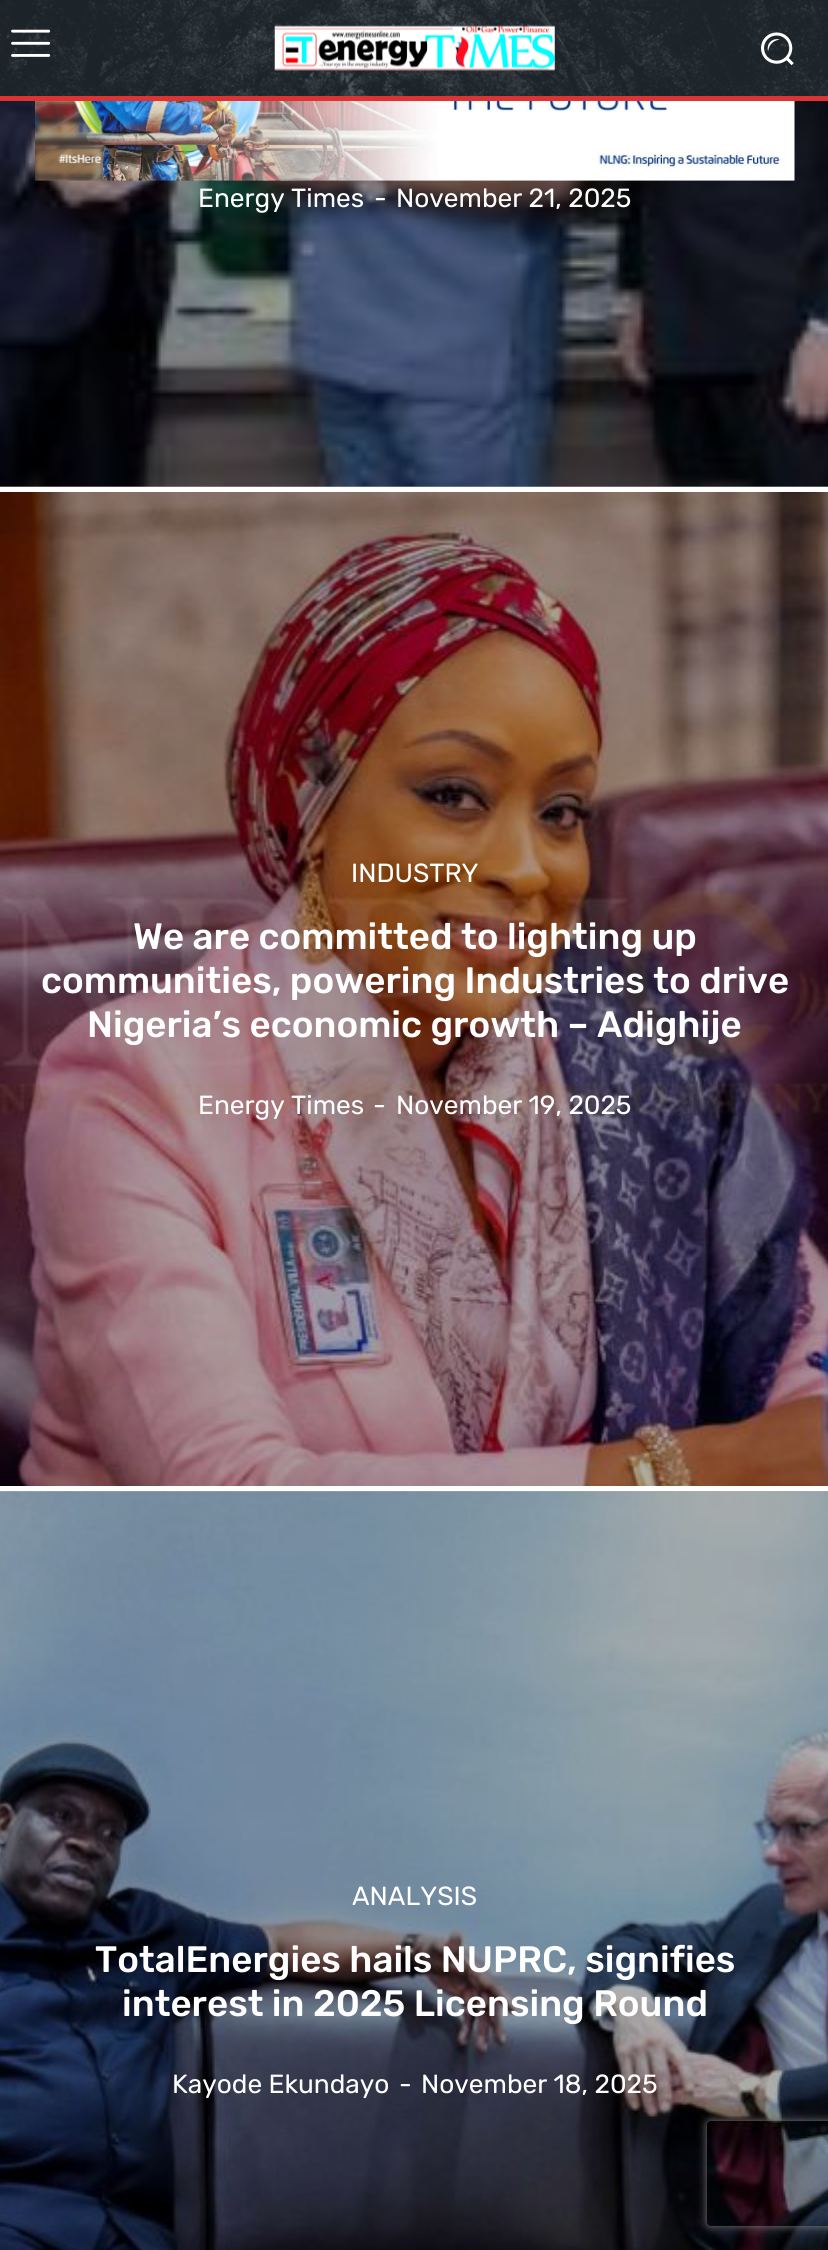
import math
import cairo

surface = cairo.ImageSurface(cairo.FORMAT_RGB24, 828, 2250)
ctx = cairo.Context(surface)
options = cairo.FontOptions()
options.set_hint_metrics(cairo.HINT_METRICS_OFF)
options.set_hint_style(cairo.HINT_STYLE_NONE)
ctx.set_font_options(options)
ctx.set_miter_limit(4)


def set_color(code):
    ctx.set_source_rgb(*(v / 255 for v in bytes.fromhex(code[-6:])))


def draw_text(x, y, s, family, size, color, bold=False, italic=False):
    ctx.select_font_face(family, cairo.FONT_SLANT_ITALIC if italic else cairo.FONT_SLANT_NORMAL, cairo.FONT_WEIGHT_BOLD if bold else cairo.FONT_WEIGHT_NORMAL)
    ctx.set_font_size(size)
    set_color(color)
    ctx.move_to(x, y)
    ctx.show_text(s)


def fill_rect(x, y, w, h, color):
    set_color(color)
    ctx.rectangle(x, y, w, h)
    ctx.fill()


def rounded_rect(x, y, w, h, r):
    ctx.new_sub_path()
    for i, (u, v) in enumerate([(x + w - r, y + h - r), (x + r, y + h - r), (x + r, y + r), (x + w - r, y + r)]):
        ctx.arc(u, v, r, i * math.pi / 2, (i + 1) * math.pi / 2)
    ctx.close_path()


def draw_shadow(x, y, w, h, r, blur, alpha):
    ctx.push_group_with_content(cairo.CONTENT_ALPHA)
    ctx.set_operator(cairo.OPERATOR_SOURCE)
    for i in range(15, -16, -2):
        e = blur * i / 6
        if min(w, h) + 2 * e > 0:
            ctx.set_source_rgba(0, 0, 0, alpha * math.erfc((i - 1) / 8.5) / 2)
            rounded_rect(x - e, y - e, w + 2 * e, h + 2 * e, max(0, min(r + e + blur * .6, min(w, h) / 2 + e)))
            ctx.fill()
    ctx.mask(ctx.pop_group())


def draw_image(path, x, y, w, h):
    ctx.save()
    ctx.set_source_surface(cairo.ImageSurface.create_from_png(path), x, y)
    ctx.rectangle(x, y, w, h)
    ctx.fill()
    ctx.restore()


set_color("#ffffff")
ctx.paint()
fill_rect(0, 0, 828, 96, "#232d35")
draw_image("assets/img1.png", 0, 0, 828, 96)
draw_image("assets/img2.png", 11, 29, 40, 28)
draw_image("assets/img3.png", 274, 25, 281, 46)
draw_image("assets/img4.png", 761, 32, 33, 34)
fill_rect(0, 96, 828, 5, "#dd3333")
draw_image("assets/img5.png", 0, 101, 828, 386)
ctx.set_source_rgba(0, 0, 0, 0.32)
ctx.rectangle(0, 101, 828, 386)
ctx.fill()
draw_image("assets/img6.png", 35, 101, 760, 80)
draw_text(198, 207, "Energy Times", "Rubik", 26.25, "#ffffff")
draw_text(374, 207, "-", "Rubik", 26.25, "#ffffff")
draw_text(396, 207, "November 21, 2025", "Rubik", 26.25, "#ffffff")
draw_image("assets/img7.png", 0, 492, 828, 994)
draw_text(351, 882, "INDUSTRY", "Rubik", 26.25, "#ffffff")
draw_text(133, 949, "We are committed to lighting up", "Rubik Medium", 36.75, "#ffffff")
draw_text(41, 993, "communities, powering Industries to drive", "Rubik Medium", 36.75, "#ffffff")
draw_text(87, 1037, "Nigeria’s economic growth – Adighije", "Rubik Medium", 36.75, "#ffffff")
draw_text(198, 1114, "Energy Times", "Rubik", 26.25, "#ffffff")
draw_text(373, 1114, "-", "Rubik", 26.25, "#ffffff")
draw_text(396, 1114, "November 19, 2025", "Rubik", 26.25, "#ffffff")
draw_image("assets/img8.png", 0, 1491, 828, 759)
ctx.set_source_rgba(0, 0, 0, 0.32)
ctx.rectangle(0, 1491, 828, 759)
ctx.fill()
draw_text(352, 1905, "ANALYSIS", "Rubik", 26.25, "#ffffff")
draw_text(95, 1972, "TotalEnergies hails NUPRC, signifies", "Rubik Medium", 36.75, "#ffffff")
draw_text(122, 2016, "interest in 2025 Licensing Round", "Rubik Medium", 36.75, "#ffffff")
draw_text(172, 2093, "Kayode Ekundayo", "Rubik", 26.25, "#ffffff")
draw_text(399, 2093, "-", "Rubik", 26.25, "#ffffff")
draw_text(421, 2093, "November 18, 2025", "Rubik", 26.25, "#ffffff")
ctx.save()
ctx.set_fill_rule(cairo.FILL_RULE_EVEN_ODD)
ctx.new_path()
ctx.move_to(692, 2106)
ctx.line_to(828, 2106)
ctx.line_to(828, 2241)
ctx.line_to(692, 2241)
ctx.close_path()
ctx.move_to(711, 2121)
ctx.line_to(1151, 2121)
ctx.curve_to(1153, 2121, 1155, 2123, 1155, 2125)
ctx.line_to(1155, 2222)
ctx.curve_to(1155, 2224, 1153, 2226, 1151, 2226)
ctx.line_to(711, 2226)
ctx.curve_to(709, 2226, 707, 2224, 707, 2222)
ctx.line_to(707, 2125)
ctx.curve_to(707, 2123, 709, 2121, 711, 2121)
ctx.close_path()
ctx.clip()
set_color("#808080")
draw_shadow(707, 2121, 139, 105, 4, 4.5, 1)
ctx.restore()
surface.write_to_png("output.png")
